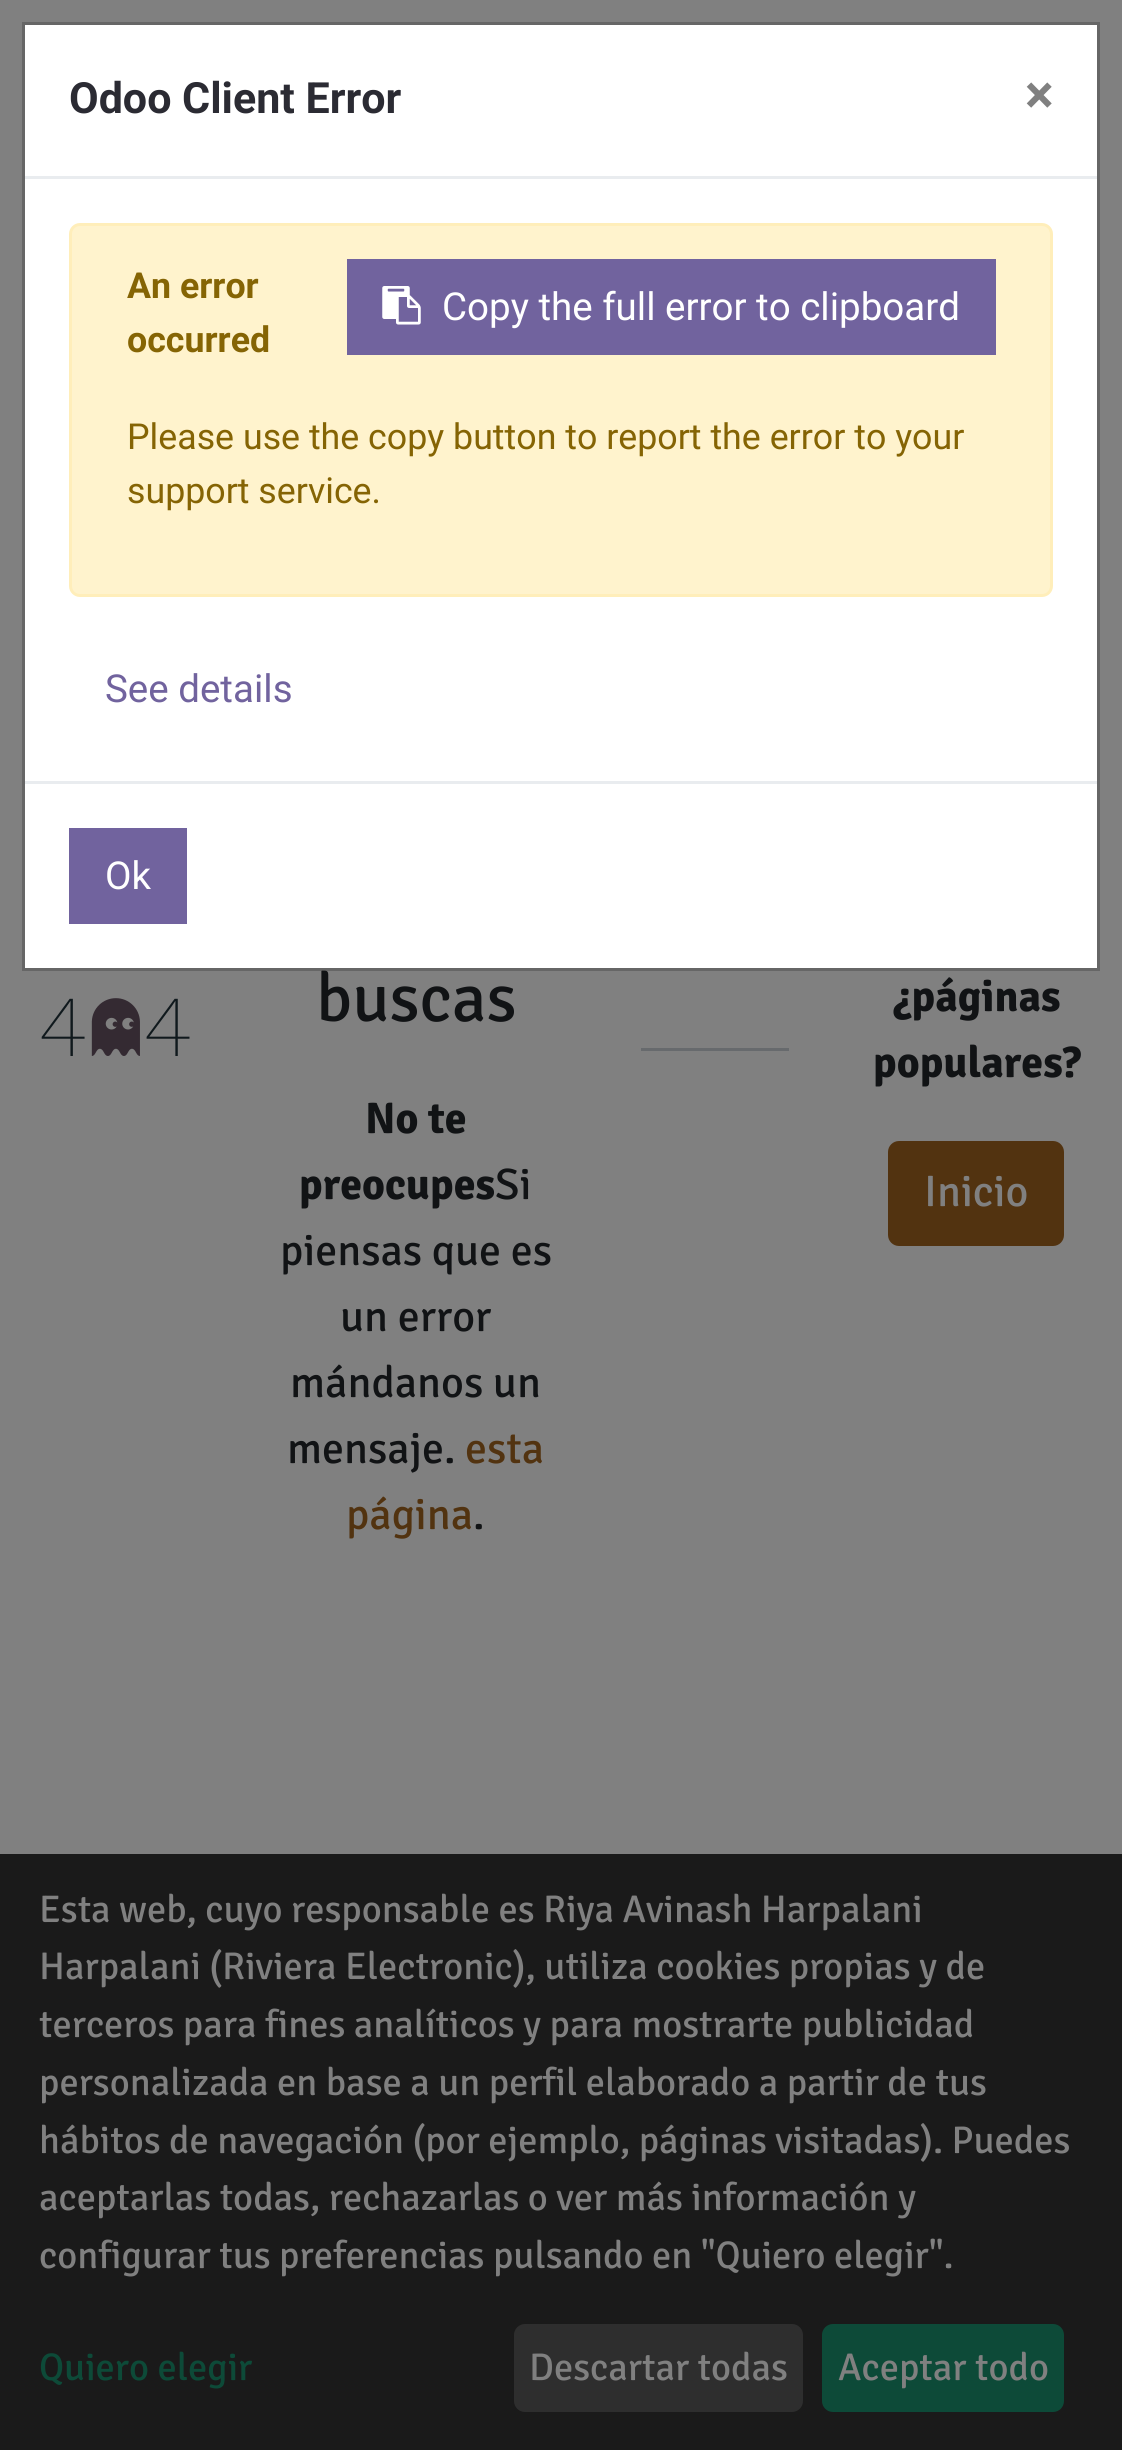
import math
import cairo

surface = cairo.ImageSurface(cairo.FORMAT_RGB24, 1122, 2450)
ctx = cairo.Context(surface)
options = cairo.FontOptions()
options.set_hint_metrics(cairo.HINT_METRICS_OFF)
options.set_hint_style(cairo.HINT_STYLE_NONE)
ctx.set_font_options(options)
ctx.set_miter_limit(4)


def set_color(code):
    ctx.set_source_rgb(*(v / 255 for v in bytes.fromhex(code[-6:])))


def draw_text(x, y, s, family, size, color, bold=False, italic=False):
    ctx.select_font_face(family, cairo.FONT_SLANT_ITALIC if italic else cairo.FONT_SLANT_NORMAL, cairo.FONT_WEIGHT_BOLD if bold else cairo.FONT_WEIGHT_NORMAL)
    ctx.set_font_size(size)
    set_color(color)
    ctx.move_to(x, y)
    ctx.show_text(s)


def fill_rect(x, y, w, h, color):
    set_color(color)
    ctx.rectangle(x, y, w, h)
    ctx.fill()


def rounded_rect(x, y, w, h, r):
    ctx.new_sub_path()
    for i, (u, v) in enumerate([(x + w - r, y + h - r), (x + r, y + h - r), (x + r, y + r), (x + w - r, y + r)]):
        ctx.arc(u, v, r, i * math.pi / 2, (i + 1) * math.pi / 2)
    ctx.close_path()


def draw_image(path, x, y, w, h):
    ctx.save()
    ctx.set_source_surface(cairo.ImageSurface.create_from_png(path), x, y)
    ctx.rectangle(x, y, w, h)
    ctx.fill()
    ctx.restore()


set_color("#808080")
ctx.paint()
fill_rect(25, 25, 1072, 943, "#ffffff")
draw_text(316, 1021, "buscas", "Signika", 68.5, "#111315")
ctx.rectangle(23.5, 23.5, 1075, 946)
ctx.set_source_rgba(0, 0, 0, 0.2)
ctx.set_line_width(3)
ctx.stroke()
fill_rect(25, 176, 1072, 3, "#e9ecef")
draw_text(69, 113, "Odoo Client Error", "Roboto", 43, "#2b2b33", bold=True)
draw_text(1025, 113, "×", "Roboto", 54, "#808080", bold=True)
set_color("#fff3cd")
rounded_rect(70.5, 224.5, 981, 371, 9.5)
ctx.fill_preserve()
set_color("#ffeeba")
ctx.stroke()
draw_text(127, 298, "An error", "Roboto", 35.75, "#856404", bold=True)
draw_text(127, 352, "occurred", "Roboto", 35.75, "#856404", bold=True)
fill_rect(347, 259, 649, 96, "#71639e")
draw_image("assets/img1.png", 382, 286, 39, 39)
draw_text(442, 320, "Copy the full error to clipboard", "Roboto", 38.5, "#ffffff")
draw_text(127, 449, "Please use the copy button to report the error to your", "Roboto", 35.75, "#856404")
draw_text(127, 503, "support service.", "Roboto", 35.75, "#856404")
draw_text(105, 702, "See details", "Roboto", 38.5, "#71639e")
fill_rect(25, 781, 1072, 3, "#e9ecef")
fill_rect(69, 828, 118, 96, "#71639e")
draw_text(105, 889, "Ok", "Roboto", 38.5, "#ffffff")
draw_image("assets/img2.png", 41, 998, 149, 58)
draw_text(365, 1133, "No te", "Signika", 44, "#111315", bold=True)
draw_text(299, 1199, "preocupes", "Signika", 44, "#111315", bold=True)
draw_text(495, 1199, "Si", "Signika", 44, "#111315")
draw_text(280, 1265, "piensas que es", "Signika", 44, "#111315")
draw_text(340, 1331, "un error", "Signika", 44, "#111315")
draw_text(290, 1397, "mándanos un", "Signika", 44, "#111315")
draw_text(287, 1463, "mensaje.", "Signika", 44, "#111315")
draw_text(465, 1463, "esta", "Signika", 44, "#523310")
draw_text(346, 1529, "página", "Signika", 44, "#523310")
draw_text(473, 1529, ".", "Signika", 44, "#111315")
fill_rect(641, 1048, 148, 3, "#676a6d")
draw_text(893, 1011, "¿páginas", "Signika", 44, "#111315", bold=True)
draw_text(873, 1077, "populares?", "Signika", 44, "#111315", bold=True)
set_color("#523310")
rounded_rect(889.5, 1142.5, 173, 102, 9.5)
ctx.fill_preserve()
ctx.stroke()
draw_text(924, 1206, "Inicio", "Signika", 44, "#808080")
fill_rect(0, 1854, 1122, 596, "#1a1a1a")
draw_text(39, 1922, "Esta web, cuyo responsable es Riya Avinash Harpalani", "Signika", 38.5, "#808080")
draw_text(39, 1979, "Harpalani (Riviera Electronic), utiliza cookies propias y de", "Signika", 38.5, "#808080")
draw_text(39, 2037, "terceros para fines analíticos y para mostrarte publicidad", "Signika", 38.5, "#808080")
draw_text(39, 2095, "personalizada en base a un perfil elaborado a partir de tus", "Signika", 38.5, "#808080")
draw_text(39, 2153, "hábitos de navegación (por ejemplo, páginas visitadas). Puedes", "Signika", 38.5, "#808080")
draw_text(39, 2210, "aceptarlas todas, rechazarlas o ver más información y", "Signika", 38.5, "#808080")
draw_text(39, 2268, "configurar tus preferencias pulsando en \"Quiero elegir\".", "Signika", 38.5, "#808080")
draw_text(39, 2380, "Quiero elegir", "Signika", 38.5, "#0d4a38")
set_color("#2e2e2e")
rounded_rect(514, 2324, 289, 88, 11)
ctx.fill()
draw_text(529, 2380, "Descartar todas", "Signika", 38.5, "#808080")
set_color("#0d4a38")
rounded_rect(822, 2324, 242, 88, 11)
ctx.fill()
draw_text(838, 2380, "Aceptar todo", "Signika", 38.5, "#808080")
surface.write_to_png("output.png")
